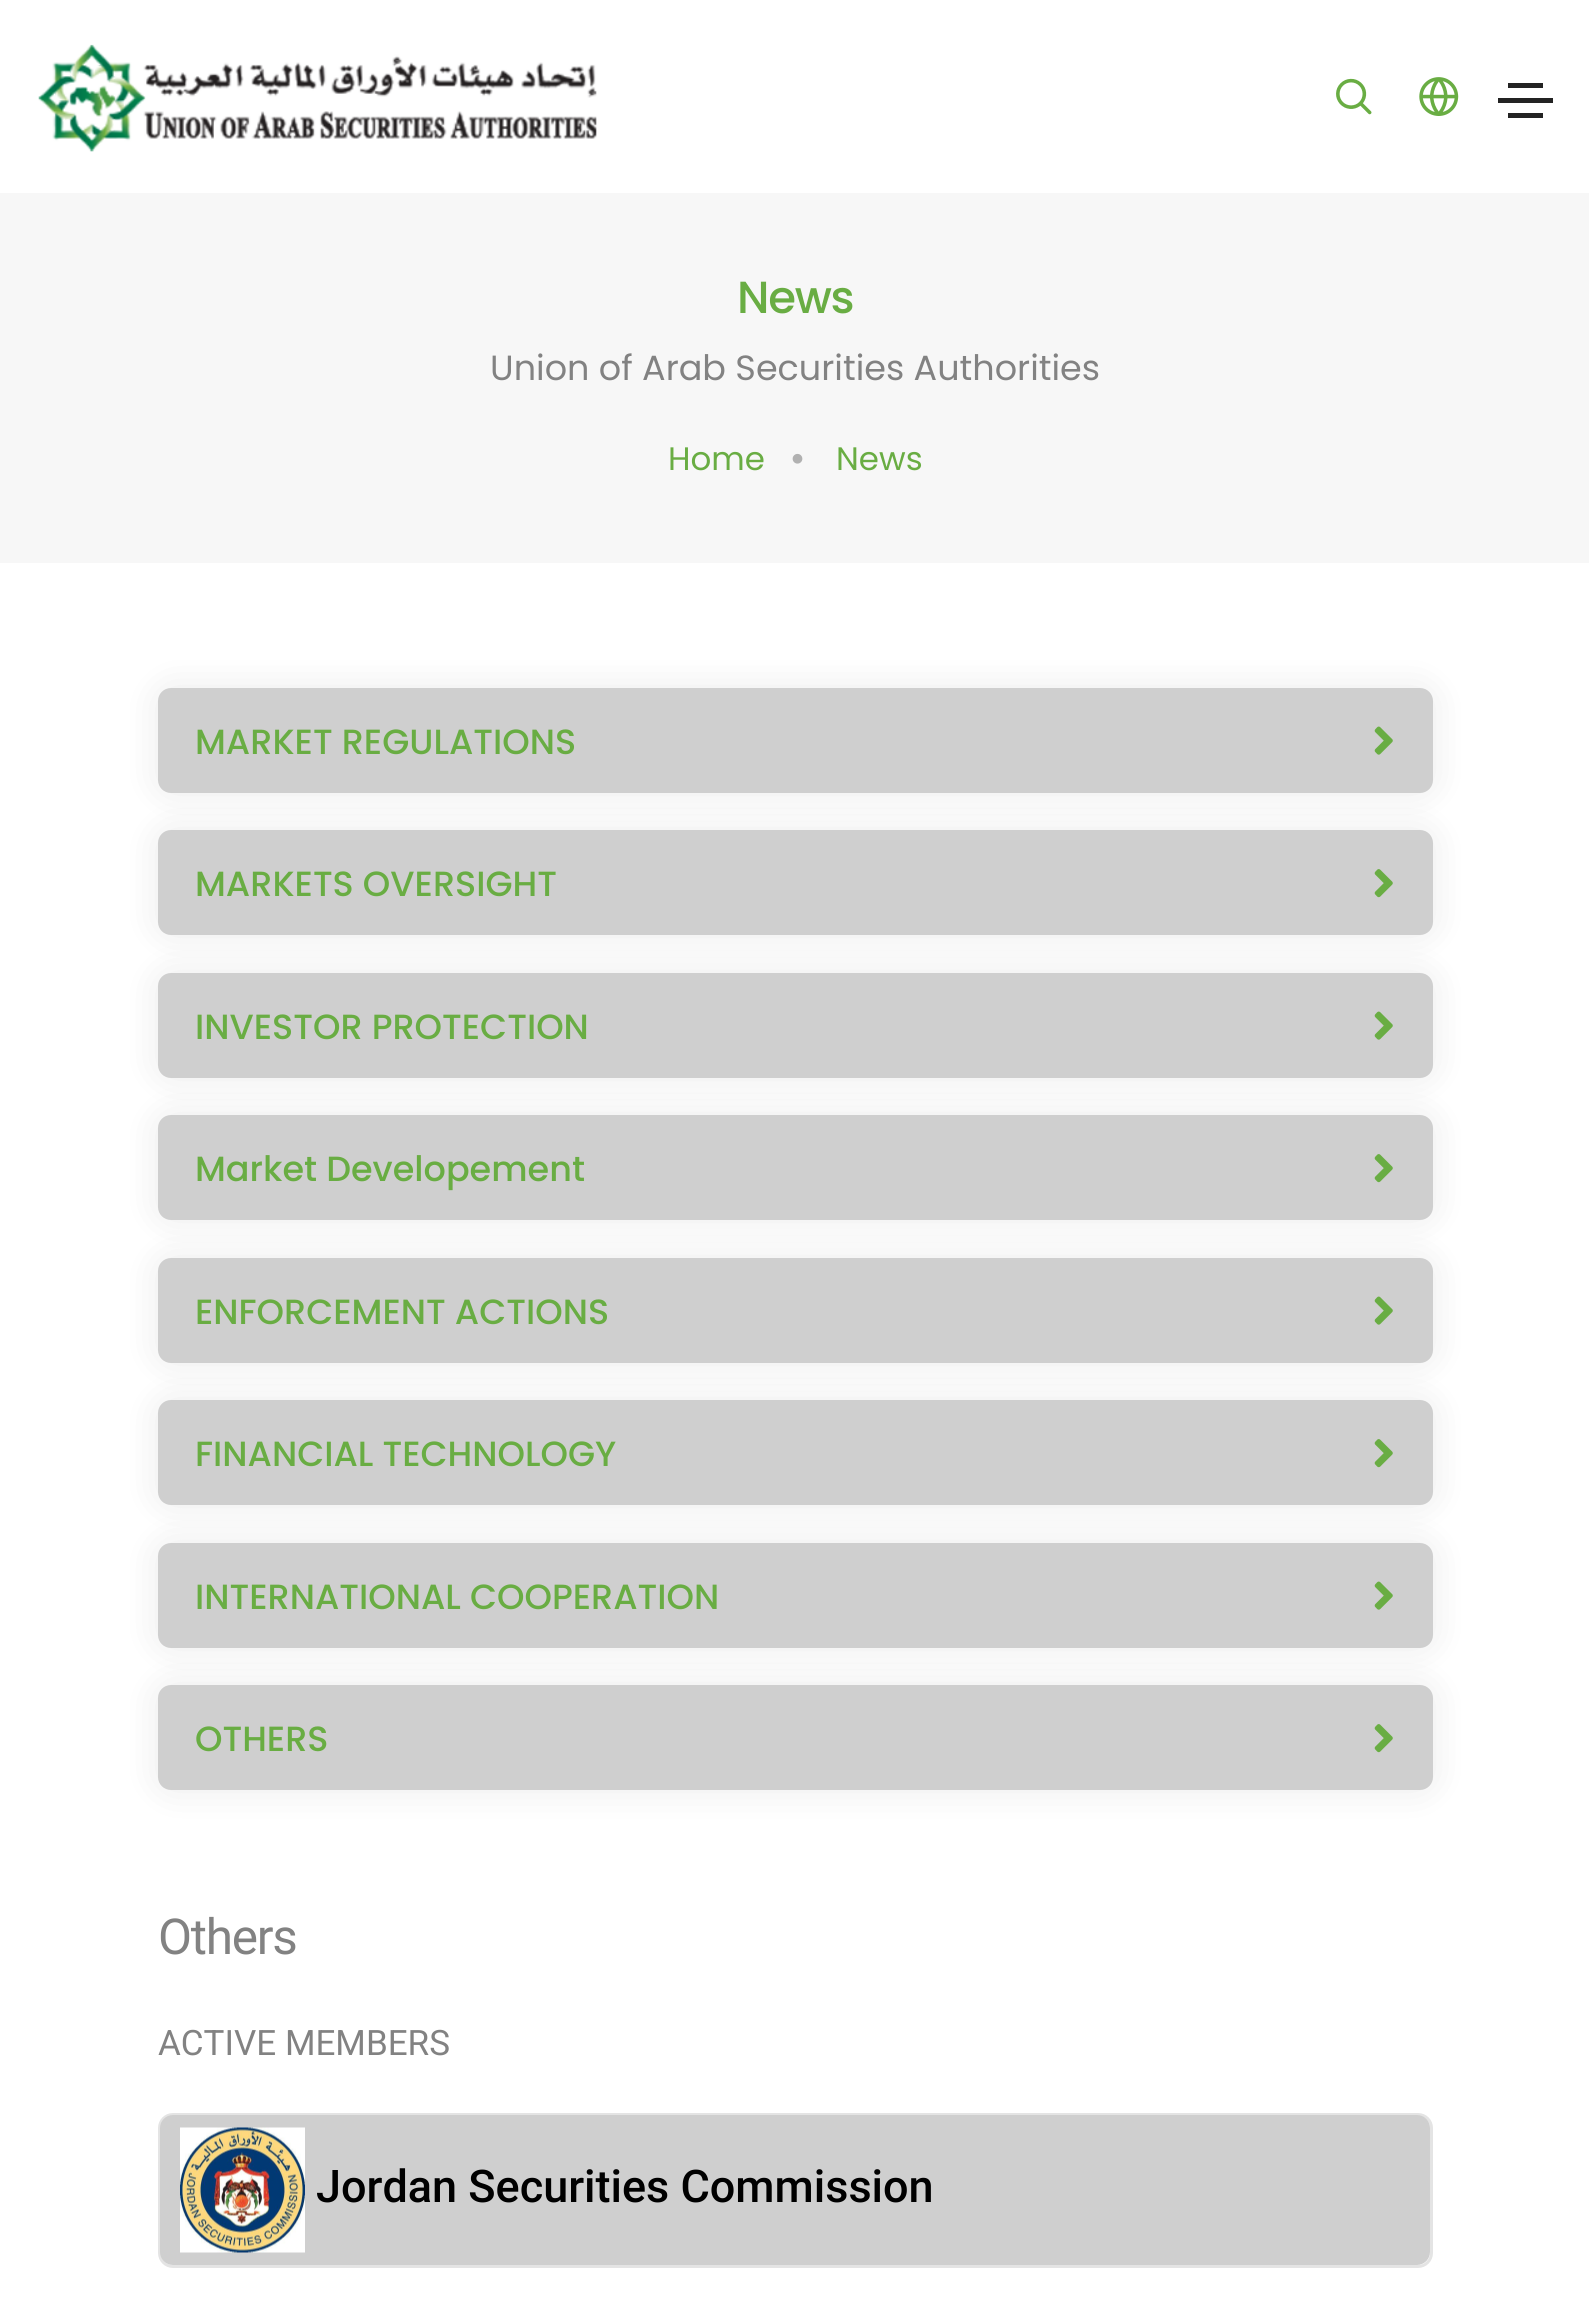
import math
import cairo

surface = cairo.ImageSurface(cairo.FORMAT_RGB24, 1589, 2317)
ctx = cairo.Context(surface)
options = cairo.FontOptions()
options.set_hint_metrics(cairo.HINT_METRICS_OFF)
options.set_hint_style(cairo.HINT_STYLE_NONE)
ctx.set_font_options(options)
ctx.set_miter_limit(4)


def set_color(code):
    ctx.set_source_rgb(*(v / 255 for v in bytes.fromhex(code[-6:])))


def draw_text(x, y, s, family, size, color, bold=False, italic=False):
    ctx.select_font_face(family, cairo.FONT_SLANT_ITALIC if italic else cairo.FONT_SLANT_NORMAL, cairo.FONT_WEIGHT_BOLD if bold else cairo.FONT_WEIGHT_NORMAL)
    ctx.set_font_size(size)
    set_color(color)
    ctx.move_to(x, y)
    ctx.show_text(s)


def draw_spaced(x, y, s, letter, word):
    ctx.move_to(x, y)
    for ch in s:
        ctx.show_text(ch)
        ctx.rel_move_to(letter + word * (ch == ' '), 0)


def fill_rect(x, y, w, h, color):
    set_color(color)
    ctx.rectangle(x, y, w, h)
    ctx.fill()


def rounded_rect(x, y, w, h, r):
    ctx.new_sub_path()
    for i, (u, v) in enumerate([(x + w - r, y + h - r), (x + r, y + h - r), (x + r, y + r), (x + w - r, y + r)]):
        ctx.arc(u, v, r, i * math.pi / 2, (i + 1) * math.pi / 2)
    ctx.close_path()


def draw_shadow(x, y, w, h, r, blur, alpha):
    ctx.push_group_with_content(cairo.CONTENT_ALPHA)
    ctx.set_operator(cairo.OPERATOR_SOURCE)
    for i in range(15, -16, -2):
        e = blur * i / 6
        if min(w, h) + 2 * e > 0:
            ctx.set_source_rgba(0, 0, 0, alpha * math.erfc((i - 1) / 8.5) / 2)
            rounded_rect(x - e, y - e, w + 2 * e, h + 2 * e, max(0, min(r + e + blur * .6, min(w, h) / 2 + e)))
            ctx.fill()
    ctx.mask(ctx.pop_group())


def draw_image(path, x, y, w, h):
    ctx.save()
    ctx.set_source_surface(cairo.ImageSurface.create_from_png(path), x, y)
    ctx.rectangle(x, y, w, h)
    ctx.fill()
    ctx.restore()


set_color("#ffffff")
ctx.paint()
draw_image("assets/img1.png", 38, 44, 559, 108)
draw_image("assets/img2.png", 1336, 78, 36, 37)
draw_image("assets/img3.png", 1419, 77, 40, 39)
fill_rect(1508, 83, 35, 5, "#232323")
fill_rect(1498, 98, 55, 5, "#232323")
fill_rect(1508, 113, 35, 5, "#232323")
fill_rect(0, 193, 1589, 370, "#f7f7f7")
ctx.select_font_face("Poppins Medium")
ctx.set_font_size(45)
set_color("#69ad43")
draw_spaced(737, 313, "News", -1.25, 0)
draw_text(490, 380, "Union of Arab Securities Authorities", "Poppins", 35, "#828282")
draw_text(668, 470, "Home", "Poppins", 32.5, "#69ad43")
draw_image("assets/img4.png", 792, 453, 11, 11)
draw_text(836, 470, "News", "Poppins", 32.5, "#69ad43")
set_color("#000000")
draw_shadow(158, 688, 1275, 105, 13, 19, 0.08)
set_color("#cfcfcf")
rounded_rect(158, 688, 1275, 105, 13)
ctx.fill()
draw_text(195, 754, "MARKET REGULATIONS", "Poppins Medium", 35, "#69ad43")
draw_image("assets/img5.png", 1374, 726, 19, 29)
set_color("#000000")
draw_shadow(158, 830, 1275, 105, 13, 19, 0.08)
set_color("#cfcfcf")
rounded_rect(158, 830, 1275, 105, 13)
ctx.fill()
draw_text(195, 896, "MARKETS OVERSIGHT", "Poppins Medium", 35, "#69ad43")
draw_image("assets/img6.png", 1374, 869, 19, 29)
set_color("#000000")
draw_shadow(158, 973, 1275, 105, 13, 19, 0.08)
set_color("#cfcfcf")
rounded_rect(158, 973, 1275, 105, 13)
ctx.fill()
draw_text(195, 1039, "INVESTOR PROTECTION", "Poppins Medium", 35, "#69ad43")
draw_image("assets/img5.png", 1374, 1011, 19, 29)
set_color("#000000")
draw_shadow(158, 1115, 1275, 105, 13, 19, 0.08)
set_color("#cfcfcf")
rounded_rect(158, 1115, 1275, 105, 13)
ctx.fill()
draw_text(195, 1181, "Market Developement", "Poppins Medium", 35, "#69ad43")
draw_image("assets/img6.png", 1374, 1154, 19, 29)
set_color("#000000")
draw_shadow(158, 1258, 1275, 105, 13, 19, 0.08)
set_color("#cfcfcf")
rounded_rect(158, 1258, 1275, 105, 13)
ctx.fill()
draw_text(195, 1324, "ENFORCEMENT ACTIONS", "Poppins Medium", 35, "#69ad43")
draw_image("assets/img5.png", 1374, 1296, 19, 29)
set_color("#000000")
draw_shadow(158, 1400, 1275, 105, 13, 19, 0.08)
set_color("#cfcfcf")
rounded_rect(158, 1400, 1275, 105, 13)
ctx.fill()
draw_text(195, 1466, "FINANCIAL TECHNOLOGY", "Poppins Medium", 35, "#69ad43")
draw_image("assets/img6.png", 1374, 1439, 19, 29)
set_color("#000000")
draw_shadow(158, 1543, 1275, 105, 13, 19, 0.08)
set_color("#cfcfcf")
rounded_rect(158, 1543, 1275, 105, 13)
ctx.fill()
draw_text(195, 1609, "INTERNATIONAL COOPERATION", "Poppins Medium", 35, "#69ad43")
draw_image("assets/img5.png", 1374, 1581, 19, 29)
set_color("#000000")
draw_shadow(158, 1685, 1275, 105, 13, 19, 0.08)
set_color("#cfcfcf")
rounded_rect(158, 1685, 1275, 105, 13)
ctx.fill()
draw_text(195, 1751, "OTHERS", "Poppins Medium", 35, "#69ad43")
draw_image("assets/img6.png", 1374, 1724, 19, 29)
ctx.select_font_face("Roboto")
ctx.set_font_size(49.5)
set_color("#828282")
draw_spaced(158, 1954, "Others", -1.25, 0)
draw_text(158, 2055, "ACTIVE MEMBERS", "Roboto", 35, "#828282")
rounded_rect(159.5, 2114.5, 1272, 152, 13.5)
set_color("#e4e4e4")
ctx.set_line_width(3)
ctx.stroke()
set_color("#cfcfcf")
rounded_rect(160, 2115, 1270, 150, 13)
ctx.fill()
draw_image("assets/img7.png", 180, 2127, 125, 126)
draw_text(316, 2202, "Jordan Securities Commission", "Roboto Medium", 45, "#000000")
surface.write_to_png("output.png")
